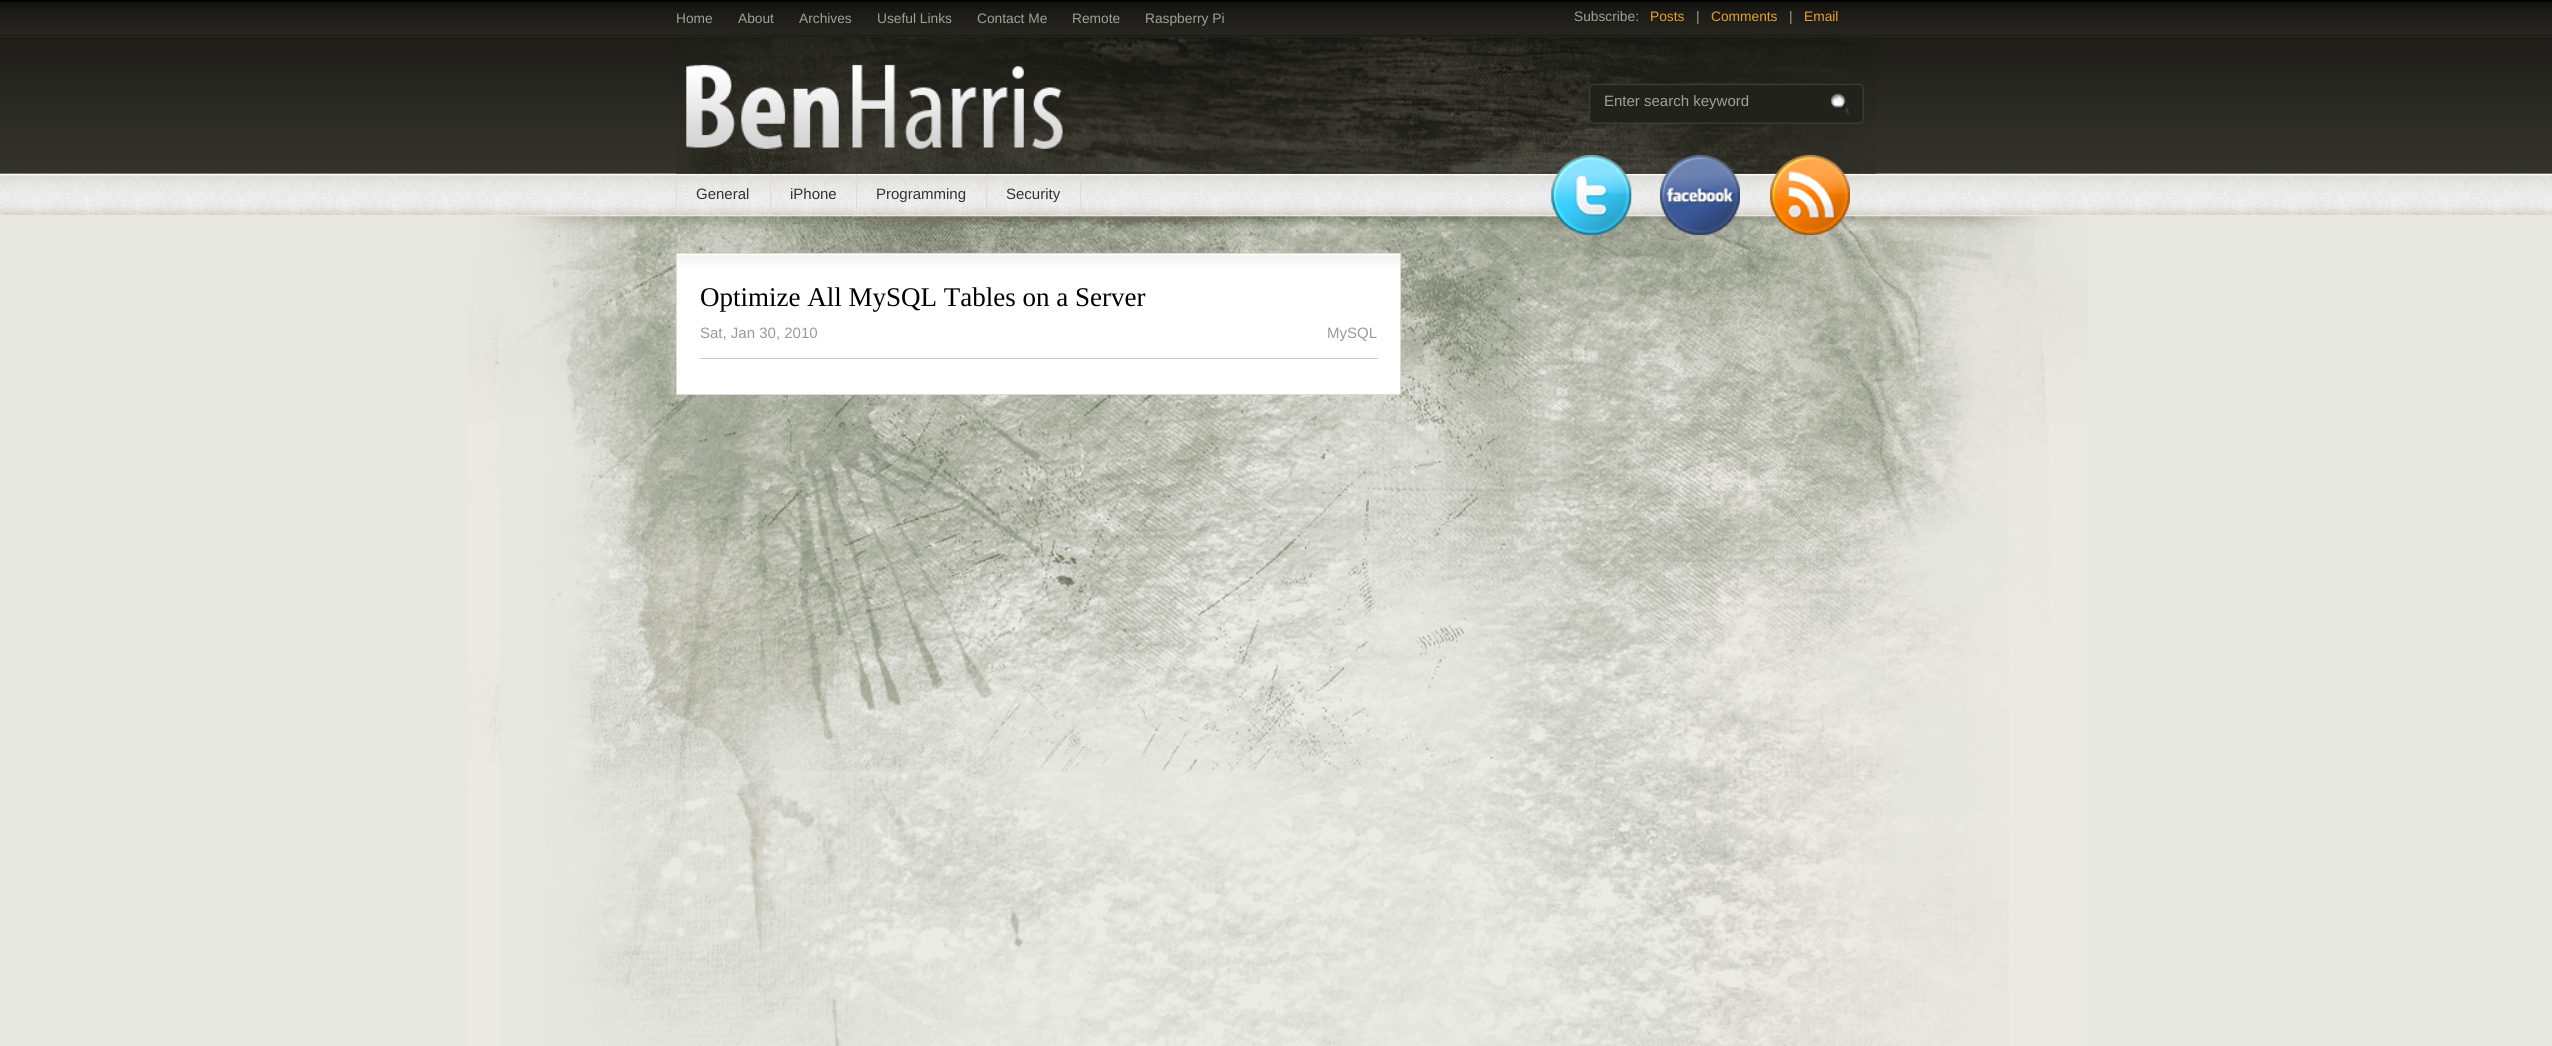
import math
import cairo

surface = cairo.ImageSurface(cairo.FORMAT_RGB24, 2552, 1046)
ctx = cairo.Context(surface)
options = cairo.FontOptions()
options.set_hint_metrics(cairo.HINT_METRICS_OFF)
options.set_hint_style(cairo.HINT_STYLE_NONE)
ctx.set_font_options(options)
ctx.set_miter_limit(4)


def set_color(code):
    ctx.set_source_rgb(*(v / 255 for v in bytes.fromhex(code[-6:])))


def draw_text(x, y, s, family, size, color, bold=False, italic=False):
    ctx.select_font_face(family, cairo.FONT_SLANT_ITALIC if italic else cairo.FONT_SLANT_NORMAL, cairo.FONT_WEIGHT_BOLD if bold else cairo.FONT_WEIGHT_NORMAL)
    ctx.set_font_size(size)
    set_color(color)
    ctx.move_to(x, y)
    ctx.show_text(s)


def fill_rect(x, y, w, h, color):
    set_color(color)
    ctx.rectangle(x, y, w, h)
    ctx.fill()


def draw_image(path, x, y, w, h):
    ctx.save()
    ctx.set_source_surface(cairo.ImageSurface.create_from_png(path), x, y)
    ctx.rectangle(x, y, w, h)
    ctx.fill()
    ctx.restore()


set_color("#e7e9e1")
ctx.paint()
draw_image("assets/img1.png", 468, 216, 1620, 830)
draw_image("assets/img2.png", 0, 0, 2552, 215)
draw_text(676, 23, "Home", "Liberation Sans", 13.75, "#a0a09b")
draw_text(738, 23, "About", "Liberation Sans", 13.75, "#a0a09b")
draw_text(799, 23, "Archives", "Liberation Sans", 13.75, "#a0a09b")
draw_text(877, 23, "Useful Links", "Liberation Sans", 13.75, "#a0a09b")
draw_text(977, 23, "Contact Me", "Liberation Sans", 13.75, "#a0a09b")
draw_text(1072, 23, "Remote", "Liberation Sans", 13.75, "#a0a09b")
draw_text(1145, 23, "Raspberry Pi", "Liberation Sans", 13.75, "#a0a09b")
draw_text(1574, 21, "Subscribe:", "Liberation Sans", 13.75, "#a0a09b")
draw_text(1650, 21, "Posts", "Liberation Sans", 13.75, "#e8a02c")
draw_text(1696, 21, "|", "Liberation Sans", 13.75, "#a0a09b")
draw_text(1711, 21, "Comments", "Liberation Sans", 13.75, "#e8a02c")
draw_text(1789, 21, "|", "Liberation Sans", 13.75, "#a0a09b")
draw_text(1804, 21, "Email", "Liberation Sans", 13.75, "#e8a02c")
draw_image("assets/img3.png", 676, 37, 1201, 137)
draw_image("assets/img4.png", 686, 64, 377, 85)
draw_image("assets/img5.png", 1588, 83, 276, 41)
draw_text(1604, 106, "Enter search keyword", "Liberation Sans", 15, "#a3a192")
draw_image("assets/img6.png", 1831, 93, 20, 22)
fill_rect(676, 174, 1, 41, "#dedbd1")
draw_text(696, 199, "General", "Liberation Sans", 15, "#333333")
fill_rect(770, 174, 1, 41, "#dedbd1")
draw_text(790, 199, "iPhone", "Liberation Sans", 15, "#333333")
fill_rect(856, 174, 1, 41, "#dedbd1")
draw_text(876, 199, "Programming", "Liberation Sans", 15, "#333333")
fill_rect(986, 174, 1, 41, "#dedbd1")
draw_text(1006, 199, "Security", "Liberation Sans", 15, "#333333")
fill_rect(1080, 174, 1, 41, "#dedbd1")
draw_image("assets/img7.png", 1551, 155, 81, 80)
draw_image("assets/img8.png", 1660, 155, 80, 80)
draw_image("assets/img9.png", 1770, 155, 80, 80)
fill_rect(677, 254, 723, 140, "#ffffff")
draw_image("assets/img10.png", 677, 255, 725, 11)
ctx.rectangle(676.5, 253.5, 724, 141)
set_color("#dedbd1")
ctx.set_line_width(1)
ctx.stroke()
draw_text(700, 306, "Optimize All MySQL Tables on a Server", "Liberation Serif", 27, "#000000")
fill_rect(700, 358, 678, 1, "#cacaca")
draw_text(700, 338, "Sat, Jan 30, 2010", "Liberation Sans", 15, "#999999")
draw_text(1327, 338, "MySQL", "Liberation Sans", 15, "#999999")
surface.write_to_png("output.png")
